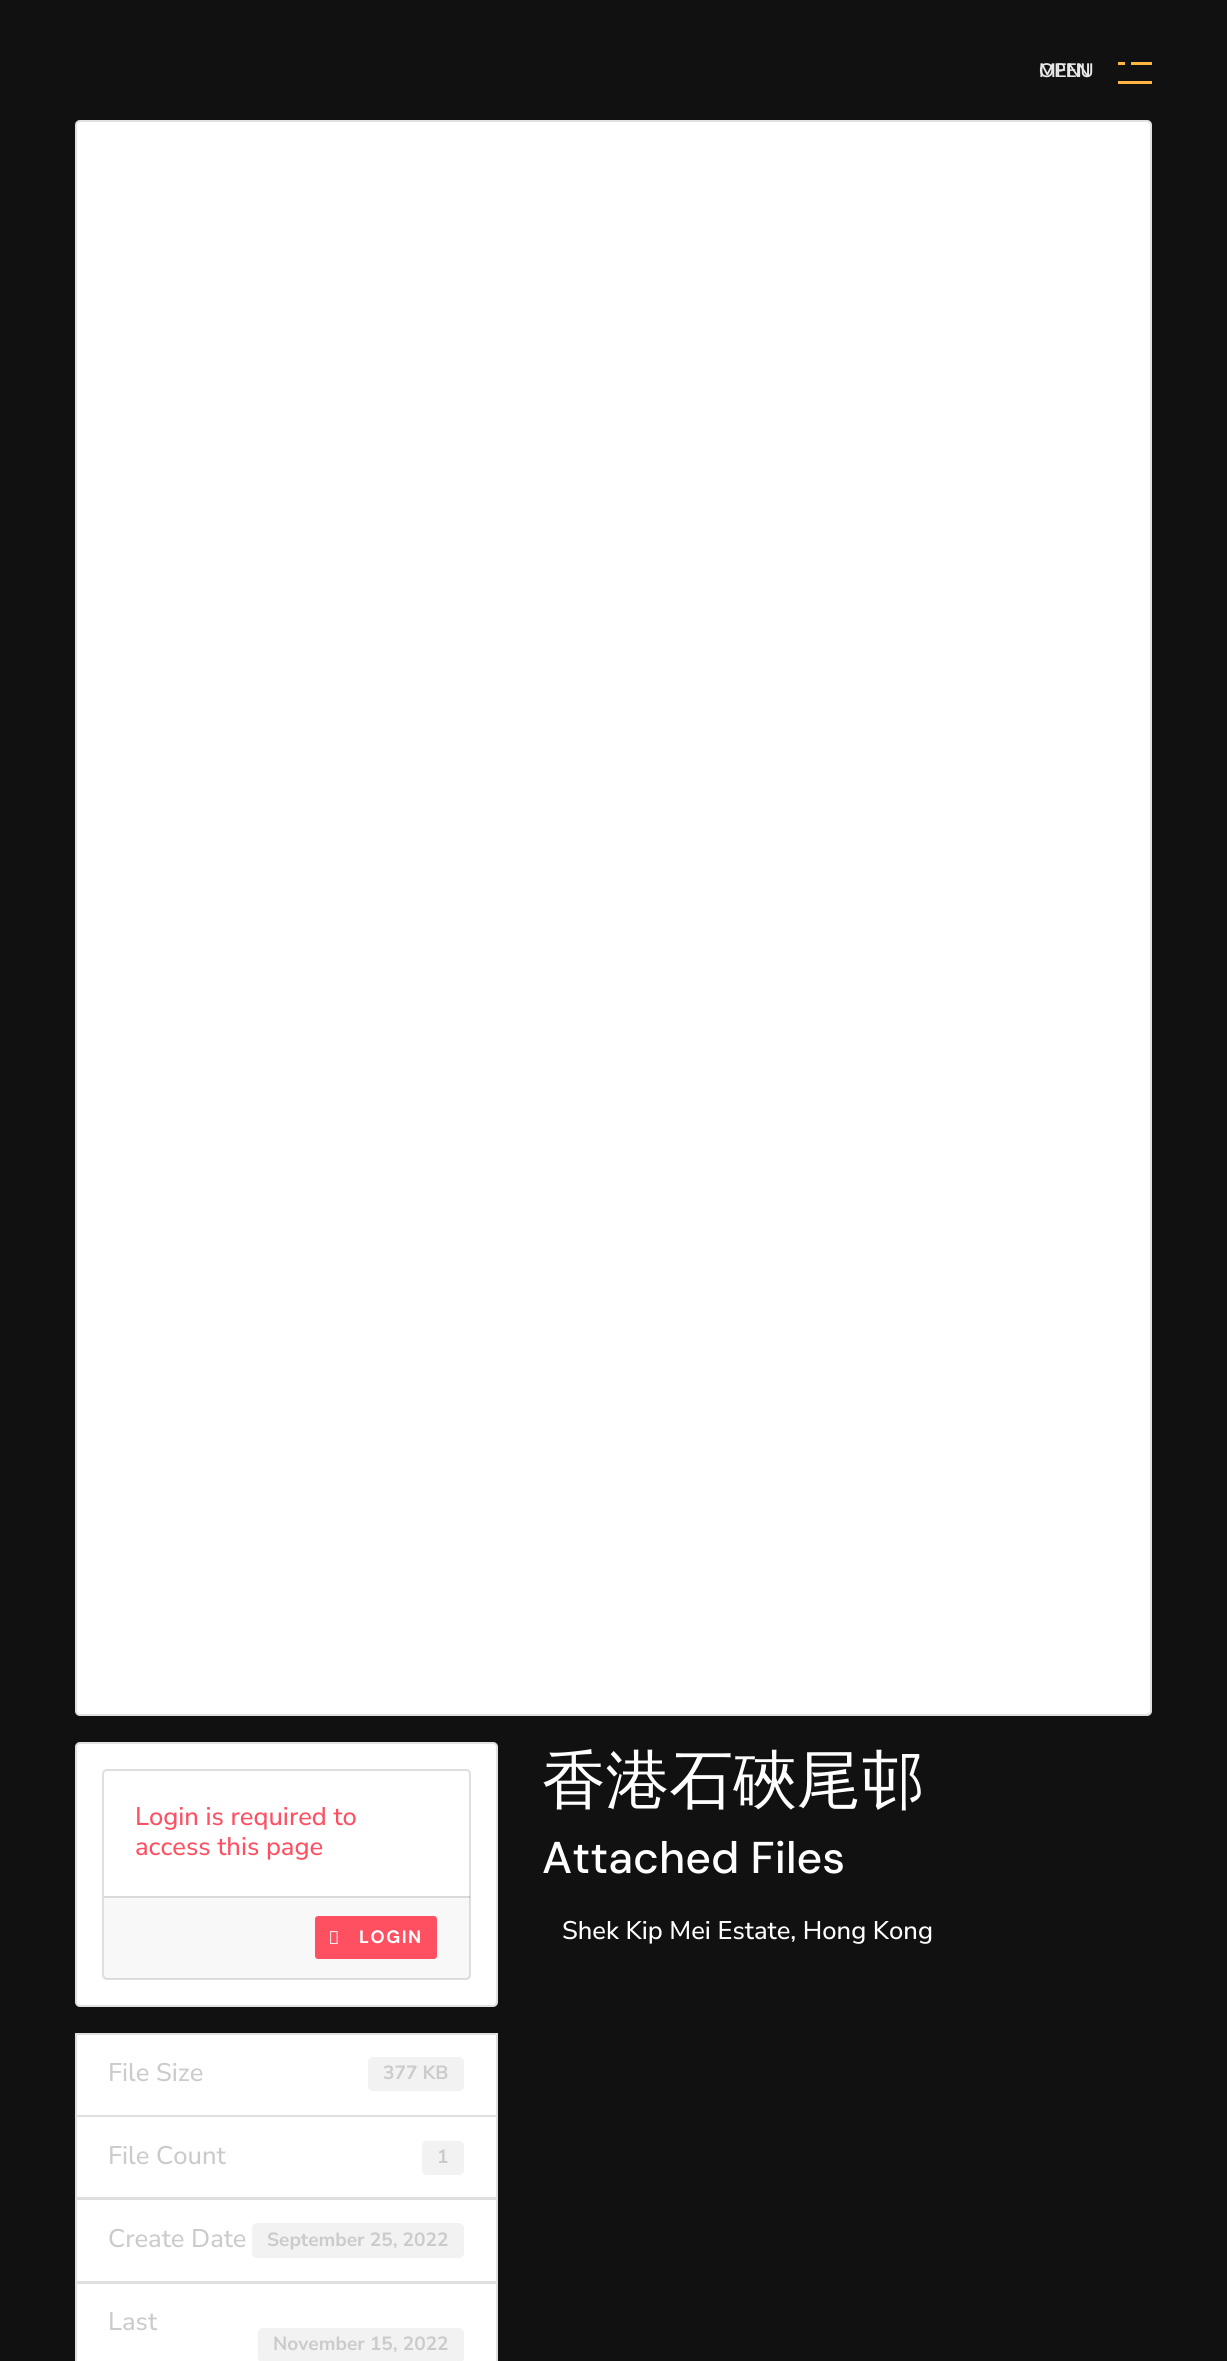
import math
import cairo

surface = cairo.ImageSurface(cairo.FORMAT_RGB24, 1227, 2361)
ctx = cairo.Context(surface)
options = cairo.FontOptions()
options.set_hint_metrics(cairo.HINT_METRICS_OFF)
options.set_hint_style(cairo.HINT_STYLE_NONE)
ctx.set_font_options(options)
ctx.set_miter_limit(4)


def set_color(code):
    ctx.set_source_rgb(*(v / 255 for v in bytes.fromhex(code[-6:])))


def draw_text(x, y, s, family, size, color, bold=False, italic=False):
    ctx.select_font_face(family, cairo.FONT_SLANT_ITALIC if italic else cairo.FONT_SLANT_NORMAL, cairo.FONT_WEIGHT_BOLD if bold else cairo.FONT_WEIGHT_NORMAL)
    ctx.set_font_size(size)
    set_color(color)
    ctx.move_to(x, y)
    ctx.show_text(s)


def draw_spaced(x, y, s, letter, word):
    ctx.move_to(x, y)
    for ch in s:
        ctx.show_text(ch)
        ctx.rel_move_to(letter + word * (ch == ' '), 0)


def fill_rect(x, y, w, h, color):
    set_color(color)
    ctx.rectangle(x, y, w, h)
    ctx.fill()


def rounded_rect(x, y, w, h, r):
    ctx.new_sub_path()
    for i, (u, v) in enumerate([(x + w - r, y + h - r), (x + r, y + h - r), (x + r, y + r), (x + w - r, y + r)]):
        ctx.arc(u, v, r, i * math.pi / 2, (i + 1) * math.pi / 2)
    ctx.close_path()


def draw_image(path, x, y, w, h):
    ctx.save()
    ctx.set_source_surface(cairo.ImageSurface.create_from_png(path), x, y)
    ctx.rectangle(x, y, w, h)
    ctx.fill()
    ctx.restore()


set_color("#111111")
ctx.paint()
draw_text(1039, 77, "MENU", "DM Sans Medium", 19.5, "#e7e7e7")
draw_text(1039, 77, "OPEN", "DM Sans Medium", 19.5, "#e7e7e7")
fill_rect(1118, 62, 7, 3, "#ffb443")
fill_rect(1131, 62, 21, 3, "#ffb443")
fill_rect(1118, 81, 34, 3, "#ffb443")
set_color("#ffffff")
rounded_rect(75, 120, 1077, 1596, 5)
ctx.fill()
rounded_rect(76, 121, 1075, 1594, 4)
ctx.set_source_rgba(0, 0, 0, 0.12)
ctx.stroke()
set_color("#ffffff")
rounded_rect(75, 1742, 423, 265, 5)
ctx.fill()
rounded_rect(76, 1743, 421, 263, 4)
ctx.set_source_rgba(0, 0, 0, 0.12)
ctx.stroke()
rounded_rect(103, 1770, 367, 209, 4)
set_color("#dfdfdf")
ctx.stroke()
draw_text(135, 1825, "Login is required to", "Nunito Sans Medium", 25.5, "#ff5062")
draw_text(135, 1855, "access this page", "Nunito Sans Medium", 25.5, "#ff5062")
ctx.set_source_rgba(0, 0, 0, 0.03)
ctx.rectangle(104, 1896, 366, 83)
ctx.fill()
ctx.set_source_rgba(0, 0, 0, 0.12)
ctx.rectangle(104, 1896, 366, 2)
ctx.fill()
set_color("#ff5062")
rounded_rect(316, 1917, 120, 41, 2)
ctx.fill_preserve()
ctx.stroke()
draw_image("assets/img1.png", 330, 1931, 8, 13)
ctx.select_font_face("DM Sans", cairo.FONT_SLANT_NORMAL, cairo.FONT_WEIGHT_BOLD)
ctx.set_font_size(18)
set_color("#ffffff")
draw_spaced(359, 1943, "LOGIN", 1.5, 0)
ctx.rectangle(76, 2034, 421, 82)
ctx.fill_preserve()
set_color("#dfdfdf")
ctx.stroke()
draw_text(108, 2081, "File Size", "Nunito Sans Medium", 25.5, "#cbcbcb")
set_color("#f2f2f2")
rounded_rect(368, 2057, 96, 34, 5)
ctx.fill()
draw_text(383, 2079, "377 KB", "Nunito Sans", 19.1, "#cbcbcb", bold=True)
set_color("#ffffff")
ctx.rectangle(76, 2116, 421, 82)
ctx.fill_preserve()
set_color("#dfdfdf")
ctx.stroke()
draw_text(108, 2164, "File Count", "Nunito Sans Medium", 25.5, "#cbcbcb")
set_color("#f2f2f2")
rounded_rect(422, 2141, 42, 34, 5)
ctx.fill()
draw_text(437, 2163, "1", "Nunito Sans", 19.1, "#cbcbcb", bold=True)
set_color("#ffffff")
ctx.rectangle(76, 2199, 421, 83)
ctx.fill_preserve()
set_color("#dfdfdf")
ctx.stroke()
draw_text(108, 2247, "Create Date", "Nunito Sans Medium", 25.5, "#cbcbcb")
set_color("#f2f2f2")
rounded_rect(252, 2223, 212, 35, 5)
ctx.fill()
draw_text(267, 2246, "September 25, 2022", "Nunito Sans", 19.1, "#cbcbcb", bold=True)
set_color("#ffffff")
ctx.rectangle(76, 2283, 421, 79)
ctx.fill_preserve()
set_color("#dfdfdf")
ctx.stroke()
draw_text(108, 2330, "Last", "Nunito Sans Medium", 25.5, "#cbcbcb")
set_color("#f2f2f2")
rounded_rect(258, 2328, 206, 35, 5)
ctx.fill()
draw_text(273, 2350, "November 15, 2022", "Nunito Sans", 19.1, "#cbcbcb", bold=True)
draw_text(542, 1802, "香港石硤尾邨", "WenQuanYi Zen Hei Medium", 63.75, "#ffffff")
draw_text(542, 1873, "Attached Files", "DM Sans Medium", 44.5, "#ffffff")
draw_text(562, 1939, "Shek Kip Mei Estate, Hong Kong", "Nunito Sans Medium", 25.5, "#ffffff")
surface.write_to_png("output.png")
